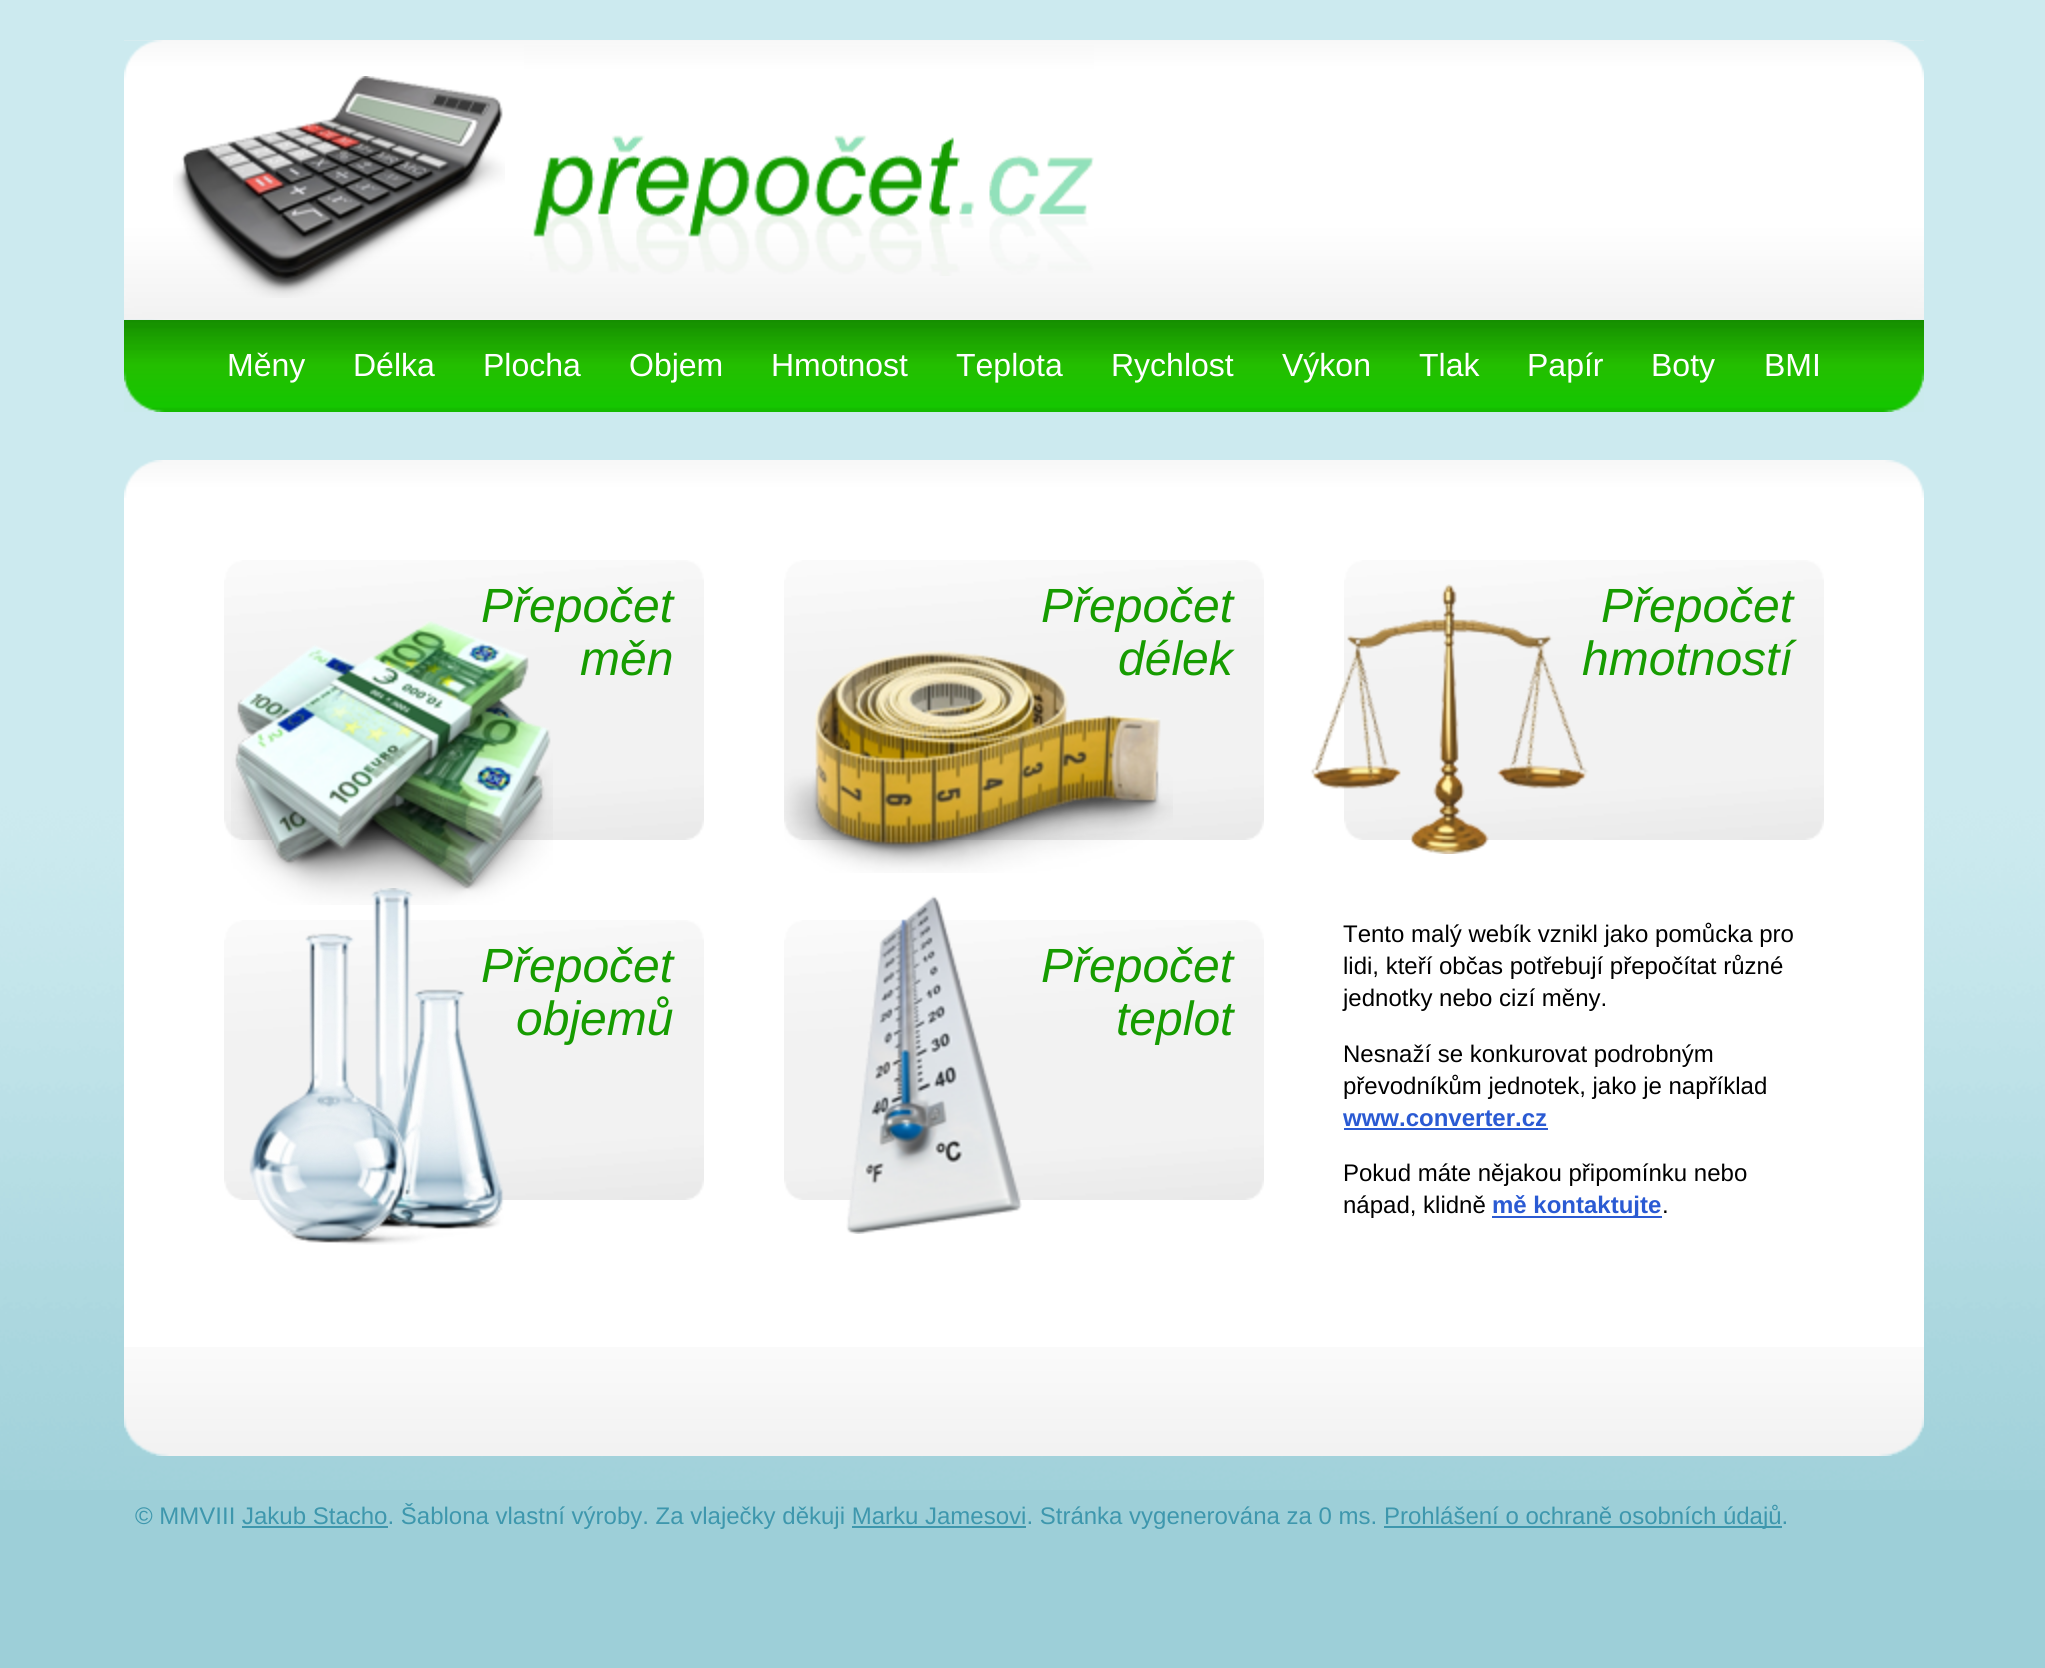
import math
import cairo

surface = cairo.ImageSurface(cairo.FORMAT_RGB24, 2045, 1668)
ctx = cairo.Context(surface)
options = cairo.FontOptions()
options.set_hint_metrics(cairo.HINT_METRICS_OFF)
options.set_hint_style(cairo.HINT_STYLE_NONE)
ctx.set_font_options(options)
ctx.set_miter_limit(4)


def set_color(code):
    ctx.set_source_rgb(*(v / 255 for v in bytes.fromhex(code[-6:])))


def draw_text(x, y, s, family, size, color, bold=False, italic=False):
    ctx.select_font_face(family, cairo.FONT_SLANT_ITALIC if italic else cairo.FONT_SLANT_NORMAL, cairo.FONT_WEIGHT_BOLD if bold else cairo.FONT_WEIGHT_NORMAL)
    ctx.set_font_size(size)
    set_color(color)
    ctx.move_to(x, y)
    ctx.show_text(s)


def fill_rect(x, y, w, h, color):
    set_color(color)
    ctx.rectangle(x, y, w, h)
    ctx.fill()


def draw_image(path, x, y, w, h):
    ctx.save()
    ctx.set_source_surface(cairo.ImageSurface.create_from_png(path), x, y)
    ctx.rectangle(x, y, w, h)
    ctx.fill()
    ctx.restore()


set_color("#9dcfd8")
ctx.paint()
draw_image("assets/img1.png", 0, 0, 2045, 1490)
draw_image("assets/img2.png", 124, 40, 1800, 280)
draw_image("assets/img3.png", 173, 76, 332, 222)
draw_image("assets/img4.png", 524, 45, 570, 231)
draw_image("assets/img5.png", 124, 320, 1800, 92)
draw_text(227, 376, "Měny", "Liberation Sans", 32, "#ffffff")
draw_text(353, 376, "Délka", "Liberation Sans", 32, "#ffffff")
draw_text(483, 376, "Plocha", "Liberation Sans", 32, "#ffffff")
draw_text(629, 376, "Objem", "Liberation Sans", 32, "#ffffff")
draw_text(771, 376, "Hmotnost", "Liberation Sans", 32, "#ffffff")
draw_text(956, 376, "Teplota", "Liberation Sans", 32, "#ffffff")
draw_text(1111, 376, "Rychlost", "Liberation Sans", 32, "#ffffff")
draw_text(1282, 376, "Výkon", "Liberation Sans", 32, "#ffffff")
draw_text(1419, 376, "Tlak", "Liberation Sans", 32, "#ffffff")
draw_text(1527, 376, "Papír", "Liberation Sans", 32, "#ffffff")
draw_text(1651, 376, "Boty", "Liberation Sans", 32, "#ffffff")
draw_text(1764, 376, "BMI", "Liberation Sans", 32, "#ffffff")
fill_rect(124, 498, 1800, 849, "#ffffff")
draw_image("assets/img6.png", 124, 460, 1800, 38)
draw_image("assets/img7.png", 124, 1347, 1800, 109)
draw_image("assets/img8.png", 224, 560, 480, 280)
draw_image("assets/img9.png", 231, 621, 322, 284)
draw_text(481, 622, "Přepočet", "Liberation Sans", 48, "#169c00", italic=True)
draw_text(580, 675, "měn", "Liberation Sans", 48, "#169c00", italic=True)
draw_image("assets/img8.png", 784, 560, 480, 280)
draw_text(1041, 622, "Přepočet", "Liberation Sans", 48, "#169c00", italic=True)
draw_image("assets/img10.png", 784, 650, 389, 223)
draw_text(1118, 675, "délek", "Liberation Sans", 48, "#169c00", italic=True)
draw_image("assets/img8.png", 1344, 560, 480, 280)
draw_image("assets/img11.png", 1310, 584, 279, 270)
draw_text(1601, 622, "Přepočet", "Liberation Sans", 48, "#169c00", italic=True)
draw_text(1582, 675, "hmotností", "Liberation Sans", 48, "#169c00", italic=True)
draw_image("assets/img8.png", 224, 920, 480, 280)
draw_image("assets/img12.png", 249, 888, 255, 357)
draw_text(481, 982, "Přepočet", "Liberation Sans", 48, "#169c00", italic=True)
draw_text(516, 1035, "objemů", "Liberation Sans", 48, "#169c00", italic=True)
draw_image("assets/img8.png", 784, 920, 480, 280)
draw_image("assets/img13.png", 846, 895, 176, 339)
draw_text(1041, 982, "Přepočet", "Liberation Sans", 48, "#169c00", italic=True)
draw_text(1116, 1035, "teplot", "Liberation Sans", 48, "#169c00", italic=True)
draw_text(1343, 942, "Tento malý webík vznikl jako pomůcka pro", "Liberation Sans", 24, "#000000")
draw_text(1343, 974, "lidi, kteří občas potřebují přepočítat různé", "Liberation Sans", 24, "#000000")
draw_text(1343, 1006, "jednotky nebo cizí měny.", "Liberation Sans", 24, "#000000")
draw_text(1343, 1062, "Nesnaží se konkurovat podrobným", "Liberation Sans", 24, "#000000")
draw_text(1343, 1094, "převodníkům jednotek, jako je například", "Liberation Sans", 24, "#000000")
draw_text(1343, 1126, "www.converter.cz", "Liberation Sans", 24, "#2a5ad3", bold=True)
fill_rect(1344, 1128, 204, 2, "#2a5ad3")
draw_text(1343, 1181, "Pokud máte nějakou připomínku nebo", "Liberation Sans", 24, "#000000")
draw_text(1343, 1213, "nápad, klidně", "Liberation Sans", 24, "#000000")
fill_rect(1492, 1216, 170, 2, "#2a5ad3")
draw_text(1492, 1213, "mě kontaktujte", "Liberation Sans", 24, "#2a5ad3", bold=True)
draw_text(1662, 1213, ".", "Liberation Sans", 24, "#000000")
draw_text(135, 1524, "© MMVIII Jakub Stacho. Šablona vlastní výroby. Za vlaječky děkuji Marku Jamesovi. Stránka vygenerována za 0 ms.", "Liberation Sans", 24, "#3e97ad")
fill_rect(1384, 1526, 398, 2, "#3e97ad")
draw_text(1384, 1524, "Prohlášení o ochraně osobních údajů.", "Liberation Sans", 24, "#3e97ad")
fill_rect(242, 1526, 146, 2, "#3e97ad")
fill_rect(852, 1526, 174, 2, "#3e97ad")
surface.write_to_png("output.png")
